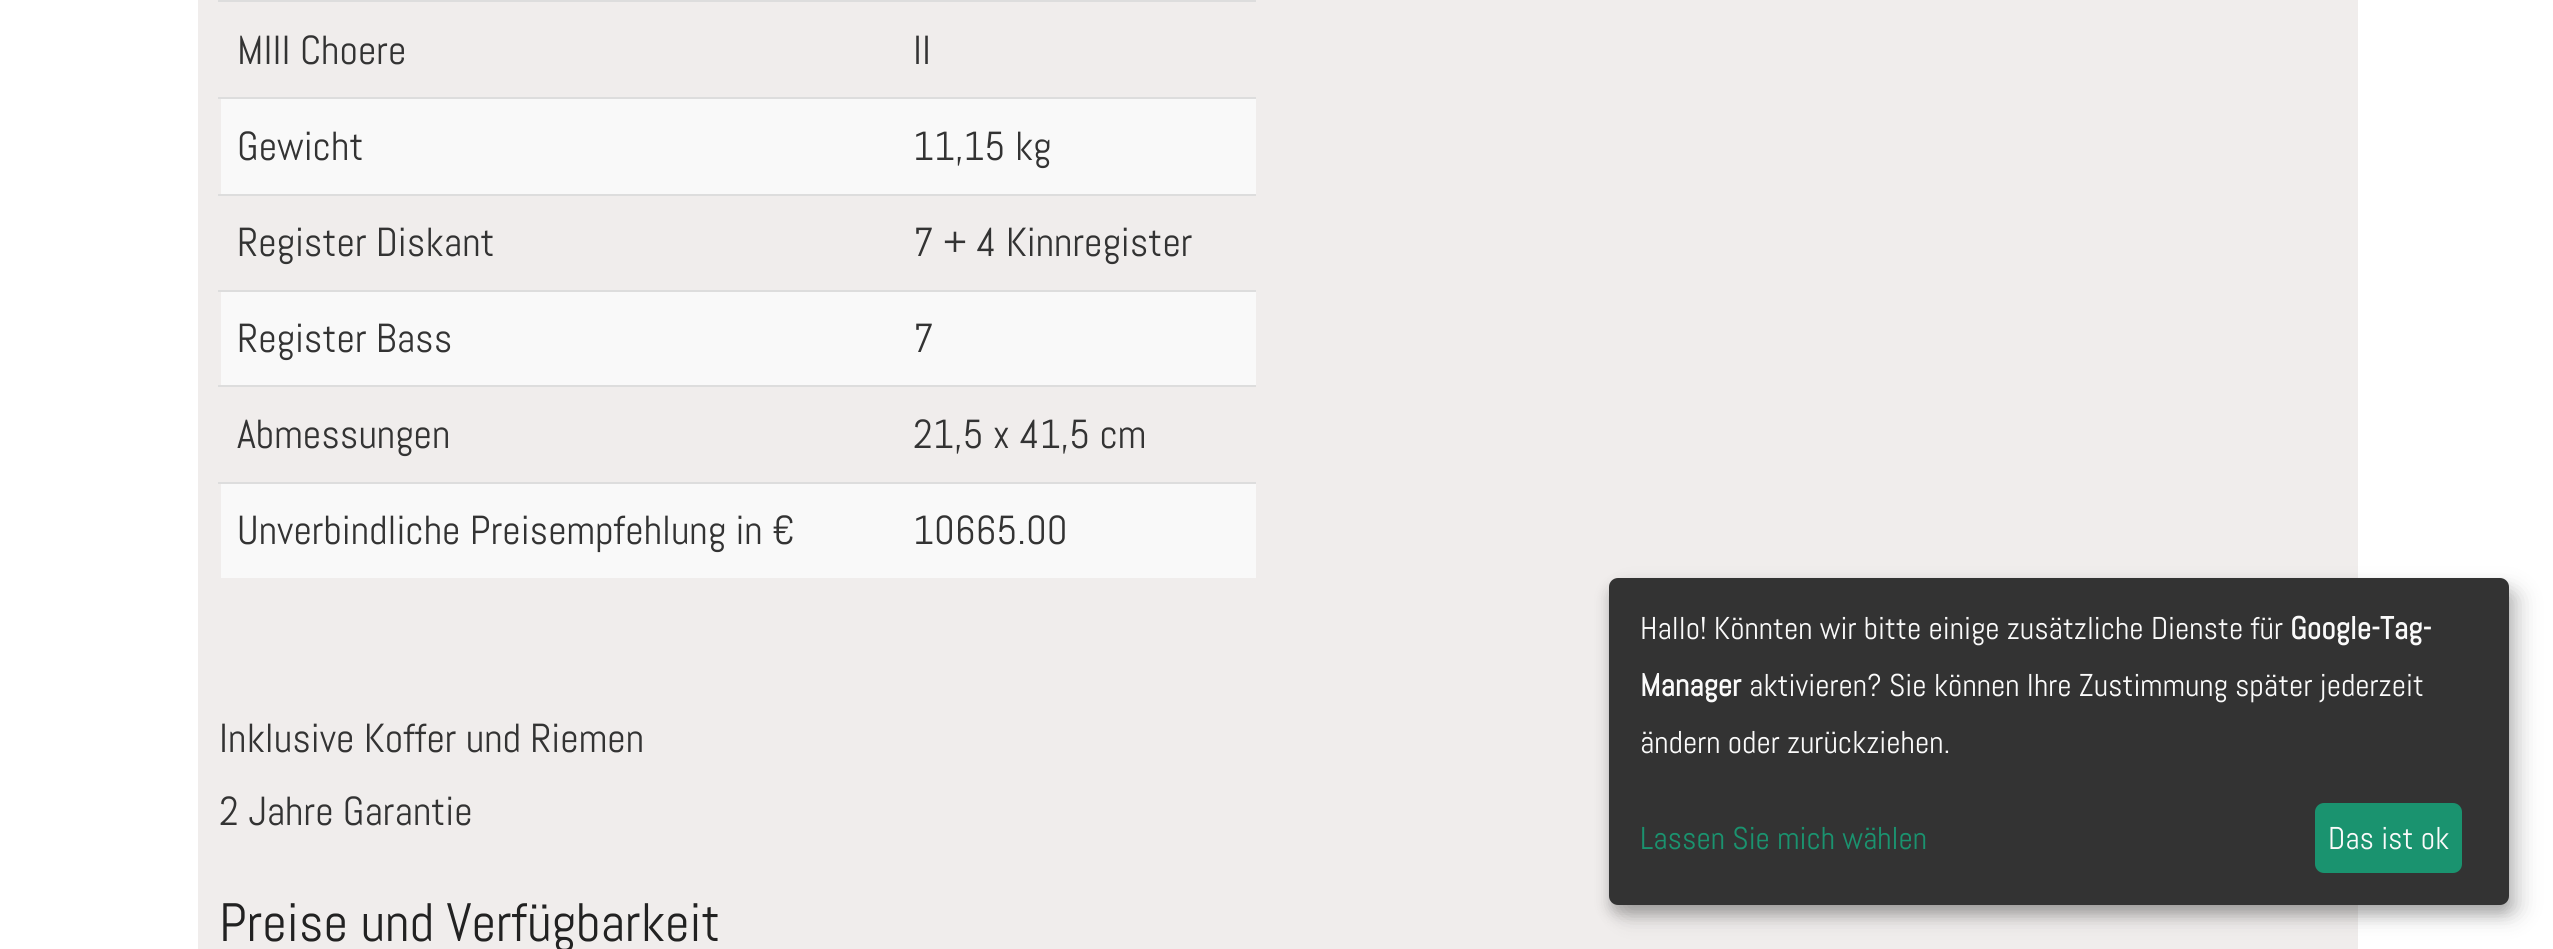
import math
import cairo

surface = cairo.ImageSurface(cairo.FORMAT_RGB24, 2553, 949)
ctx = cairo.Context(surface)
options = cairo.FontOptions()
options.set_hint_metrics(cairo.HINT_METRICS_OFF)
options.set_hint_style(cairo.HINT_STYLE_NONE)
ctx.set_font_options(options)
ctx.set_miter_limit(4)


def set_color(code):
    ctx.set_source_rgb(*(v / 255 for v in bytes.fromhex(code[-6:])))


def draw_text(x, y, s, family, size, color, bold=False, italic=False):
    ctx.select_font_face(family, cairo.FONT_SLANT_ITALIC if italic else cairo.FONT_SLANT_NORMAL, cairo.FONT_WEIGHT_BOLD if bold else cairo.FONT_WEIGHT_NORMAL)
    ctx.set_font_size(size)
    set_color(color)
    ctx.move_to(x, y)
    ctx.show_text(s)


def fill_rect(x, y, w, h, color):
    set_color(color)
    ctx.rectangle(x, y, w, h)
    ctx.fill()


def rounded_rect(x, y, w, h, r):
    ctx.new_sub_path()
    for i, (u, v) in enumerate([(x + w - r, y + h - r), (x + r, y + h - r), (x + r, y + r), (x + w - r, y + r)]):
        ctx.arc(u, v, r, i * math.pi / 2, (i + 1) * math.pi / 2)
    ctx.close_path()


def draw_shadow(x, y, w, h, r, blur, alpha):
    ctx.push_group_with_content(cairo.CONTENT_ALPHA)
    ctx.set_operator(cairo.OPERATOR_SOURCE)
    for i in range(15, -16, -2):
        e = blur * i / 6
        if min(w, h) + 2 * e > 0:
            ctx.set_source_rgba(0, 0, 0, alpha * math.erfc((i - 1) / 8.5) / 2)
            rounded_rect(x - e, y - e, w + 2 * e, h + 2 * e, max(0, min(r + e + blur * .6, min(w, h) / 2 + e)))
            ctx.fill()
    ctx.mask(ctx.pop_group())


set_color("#ffffff")
ctx.paint()
fill_rect(198, 0, 2160, 949, "#f0edec")
draw_text(237, 64, "MIII Choere", "Abel", 40.5, "#333333")
fill_rect(218, 0, 1038, 2, "#dddddd")
draw_text(913, 64, "II", "Abel", 40.5, "#333333")
fill_rect(221, 99, 1035, 95, "#f9f9f9")
draw_text(237, 160, "Gewicht", "Abel", 40.5, "#333333")
fill_rect(218, 97, 1038, 2, "#dddddd")
draw_text(913, 160, "11,15 kg", "Abel", 40.5, "#333333")
draw_text(237, 256, "Register Diskant", "Abel", 40.5, "#333333")
fill_rect(218, 194, 1038, 2, "#dddddd")
draw_text(913, 256, "7 + 4 Kinnregister", "Abel", 40.5, "#333333")
fill_rect(221, 292, 1035, 93, "#f9f9f9")
draw_text(237, 352, "Register Bass", "Abel", 40.5, "#333333")
fill_rect(218, 290, 1038, 2, "#dddddd")
draw_text(913, 352, "7", "Abel", 40.5, "#333333")
draw_text(237, 448, "Abmessungen", "Abel", 40.5, "#333333")
fill_rect(218, 385, 1038, 2, "#dddddd")
draw_text(913, 448, "21,5 x 41,5 cm", "Abel", 40.5, "#333333")
fill_rect(221, 484, 1035, 94, "#f9f9f9")
draw_text(237, 544, "Unverbindliche Preisempfehlung in €", "Abel", 40.5, "#333333")
fill_rect(218, 482, 1038, 2, "#dddddd")
draw_text(913, 544, "10665.00", "Abel", 40.5, "#333333")
draw_text(219, 752, "Inklusive Koffer und Riemen", "Abel", 40.5, "#333333")
draw_text(219, 825, "2 Jahre Garantie", "Abel", 40.5, "#333333")
draw_text(219, 941, "Preise und Verfügbarkeit", "Abel", 54, "#222222")
set_color("#000000")
draw_shadow(1620, 590, 900, 326, 9, 11, 0.19)
draw_shadow(1609, 587, 900, 327, 9, 7, 0.2)
set_color("#333333")
rounded_rect(1609, 578, 900, 327, 9)
ctx.fill()
draw_text(1640, 639, "Hallo! Könnten wir bitte einige zusätzliche Dienste für", "Abel", 31.5, "#fafafa")
draw_text(2290, 639, "Google-Tag-", "Abel", 31.5, "#fafafa", bold=True)
draw_text(1640, 696, "Manager", "Abel", 31.5, "#fafafa", bold=True)
draw_text(1749, 696, "aktivieren? Sie können Ihre Zustimmung später jederzeit", "Abel", 31.5, "#fafafa")
draw_text(1640, 753, "ändern oder zurückziehen.", "Abel", 31.5, "#fafafa")
draw_text(1640, 849, "Lassen Sie mich wählen", "Abel", 31.5, "#1a936f")
rounded_rect(2315, 803, 147, 70, 9)
ctx.fill()
draw_text(2328, 849, "Das ist ok", "Abel", 31.5, "#fafafa")
surface.write_to_png("output.png")
